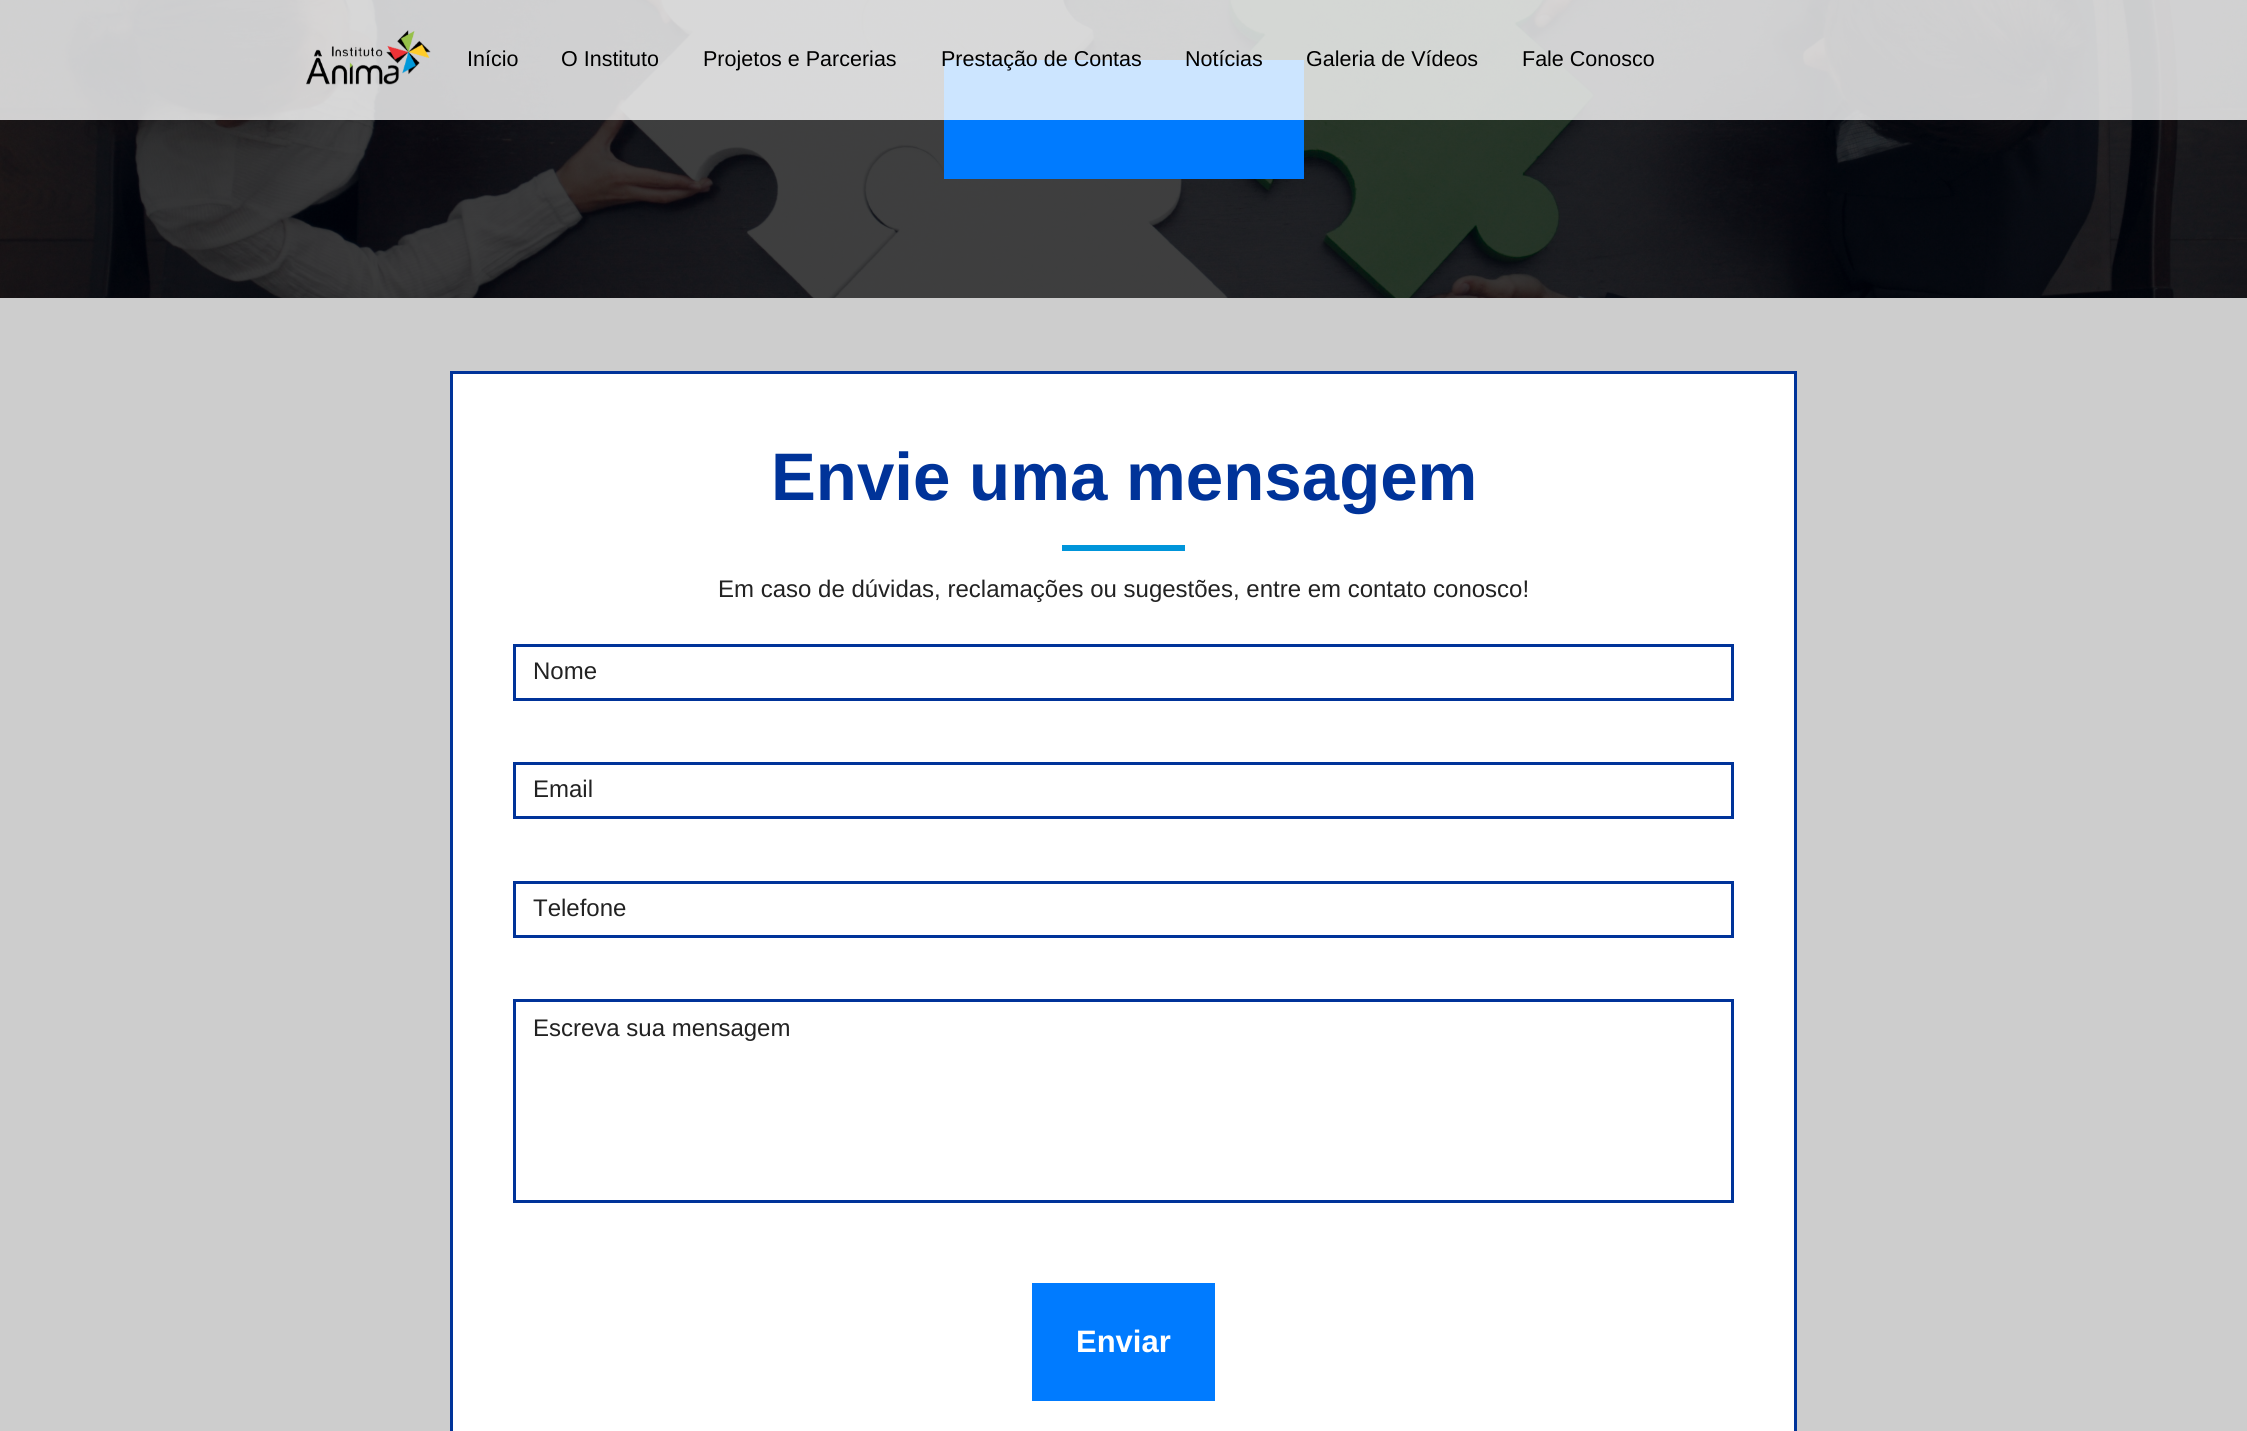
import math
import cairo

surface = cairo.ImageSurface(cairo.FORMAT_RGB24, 2247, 1431)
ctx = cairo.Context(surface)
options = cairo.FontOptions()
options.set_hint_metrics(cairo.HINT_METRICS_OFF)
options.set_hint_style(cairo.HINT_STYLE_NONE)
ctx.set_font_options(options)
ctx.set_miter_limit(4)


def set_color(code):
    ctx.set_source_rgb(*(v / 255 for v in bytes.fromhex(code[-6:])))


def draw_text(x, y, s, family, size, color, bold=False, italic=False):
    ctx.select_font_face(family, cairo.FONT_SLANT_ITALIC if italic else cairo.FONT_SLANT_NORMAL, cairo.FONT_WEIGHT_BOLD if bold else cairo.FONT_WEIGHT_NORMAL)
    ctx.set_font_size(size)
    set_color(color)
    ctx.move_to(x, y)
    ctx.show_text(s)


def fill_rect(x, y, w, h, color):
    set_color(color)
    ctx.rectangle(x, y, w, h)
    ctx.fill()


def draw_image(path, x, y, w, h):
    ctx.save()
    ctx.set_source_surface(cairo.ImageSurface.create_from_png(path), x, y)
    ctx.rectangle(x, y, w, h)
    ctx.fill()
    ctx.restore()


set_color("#cdcdcd")
ctx.paint()
draw_image("assets/img1.png", 0, 0, 2247, 298)
fill_rect(944, 60, 360, 119, "#007bff")
ctx.set_source_rgba(1, 1, 1, 0.8)
ctx.rectangle(0, 0, 2247, 120)
ctx.fill()
draw_image("assets/img2.png", 306, 30, 125, 55)
draw_text(467, 66, "Início", "Liberation Sans", 21.5, "#000000")
draw_text(561, 66, "O Instituto", "Liberation Sans", 21.5, "#000000")
draw_text(703, 66, "Projetos e Parcerias", "Liberation Sans", 21.5, "#000000")
draw_text(941, 66, "Prestação de Contas", "Liberation Sans", 21.5, "#000000")
draw_text(1185, 66, "Notícias", "Liberation Sans", 21.5, "#000000")
draw_text(1306, 66, "Galeria de Vídeos", "Liberation Sans", 21.5, "#000000")
draw_text(1522, 66, "Fale Conosco", "Liberation Sans", 21.5, "#000000")
set_color("#ffffff")
ctx.rectangle(451.5, 372.5, 1344, 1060)
ctx.fill_preserve()
set_color("#003399")
ctx.set_line_width(3)
ctx.stroke()
draw_text(771, 500, "Envie uma mensagem", "Liberation Sans", 67.25, "#003399", bold=True)
fill_rect(1062, 545, 123, 6, "#0095da")
draw_text(718, 597, "Em caso de dúvidas, reclamações ou sugestões, entre em contato conosco!", "Liberation Sans", 24, "#222222")
ctx.rectangle(514.5, 645.5, 1218, 54)
set_color("#003399")
ctx.stroke()
draw_text(533, 679, "Nome", "Liberation Sans", 24, "#222222")
ctx.rectangle(514.5, 763.5, 1218, 54)
set_color("#003399")
ctx.stroke()
draw_text(533, 797, "Email", "Liberation Sans", 24, "#222222")
ctx.rectangle(514.5, 882.5, 1218, 54)
set_color("#003399")
ctx.stroke()
draw_text(533, 916, "Telefone", "Liberation Sans", 24, "#222222")
ctx.rectangle(514.5, 1000.5, 1218, 201)
set_color("#003399")
ctx.stroke()
draw_text(533, 1036, "Escreva sua mensagem", "Liberation Sans", 24, "#222222")
fill_rect(1032, 1283, 183, 118, "#007bff")
draw_text(1076, 1352, "Enviar", "Liberation Sans", 31, "#ffffff", bold=True)
surface.write_to_png("output.png")
